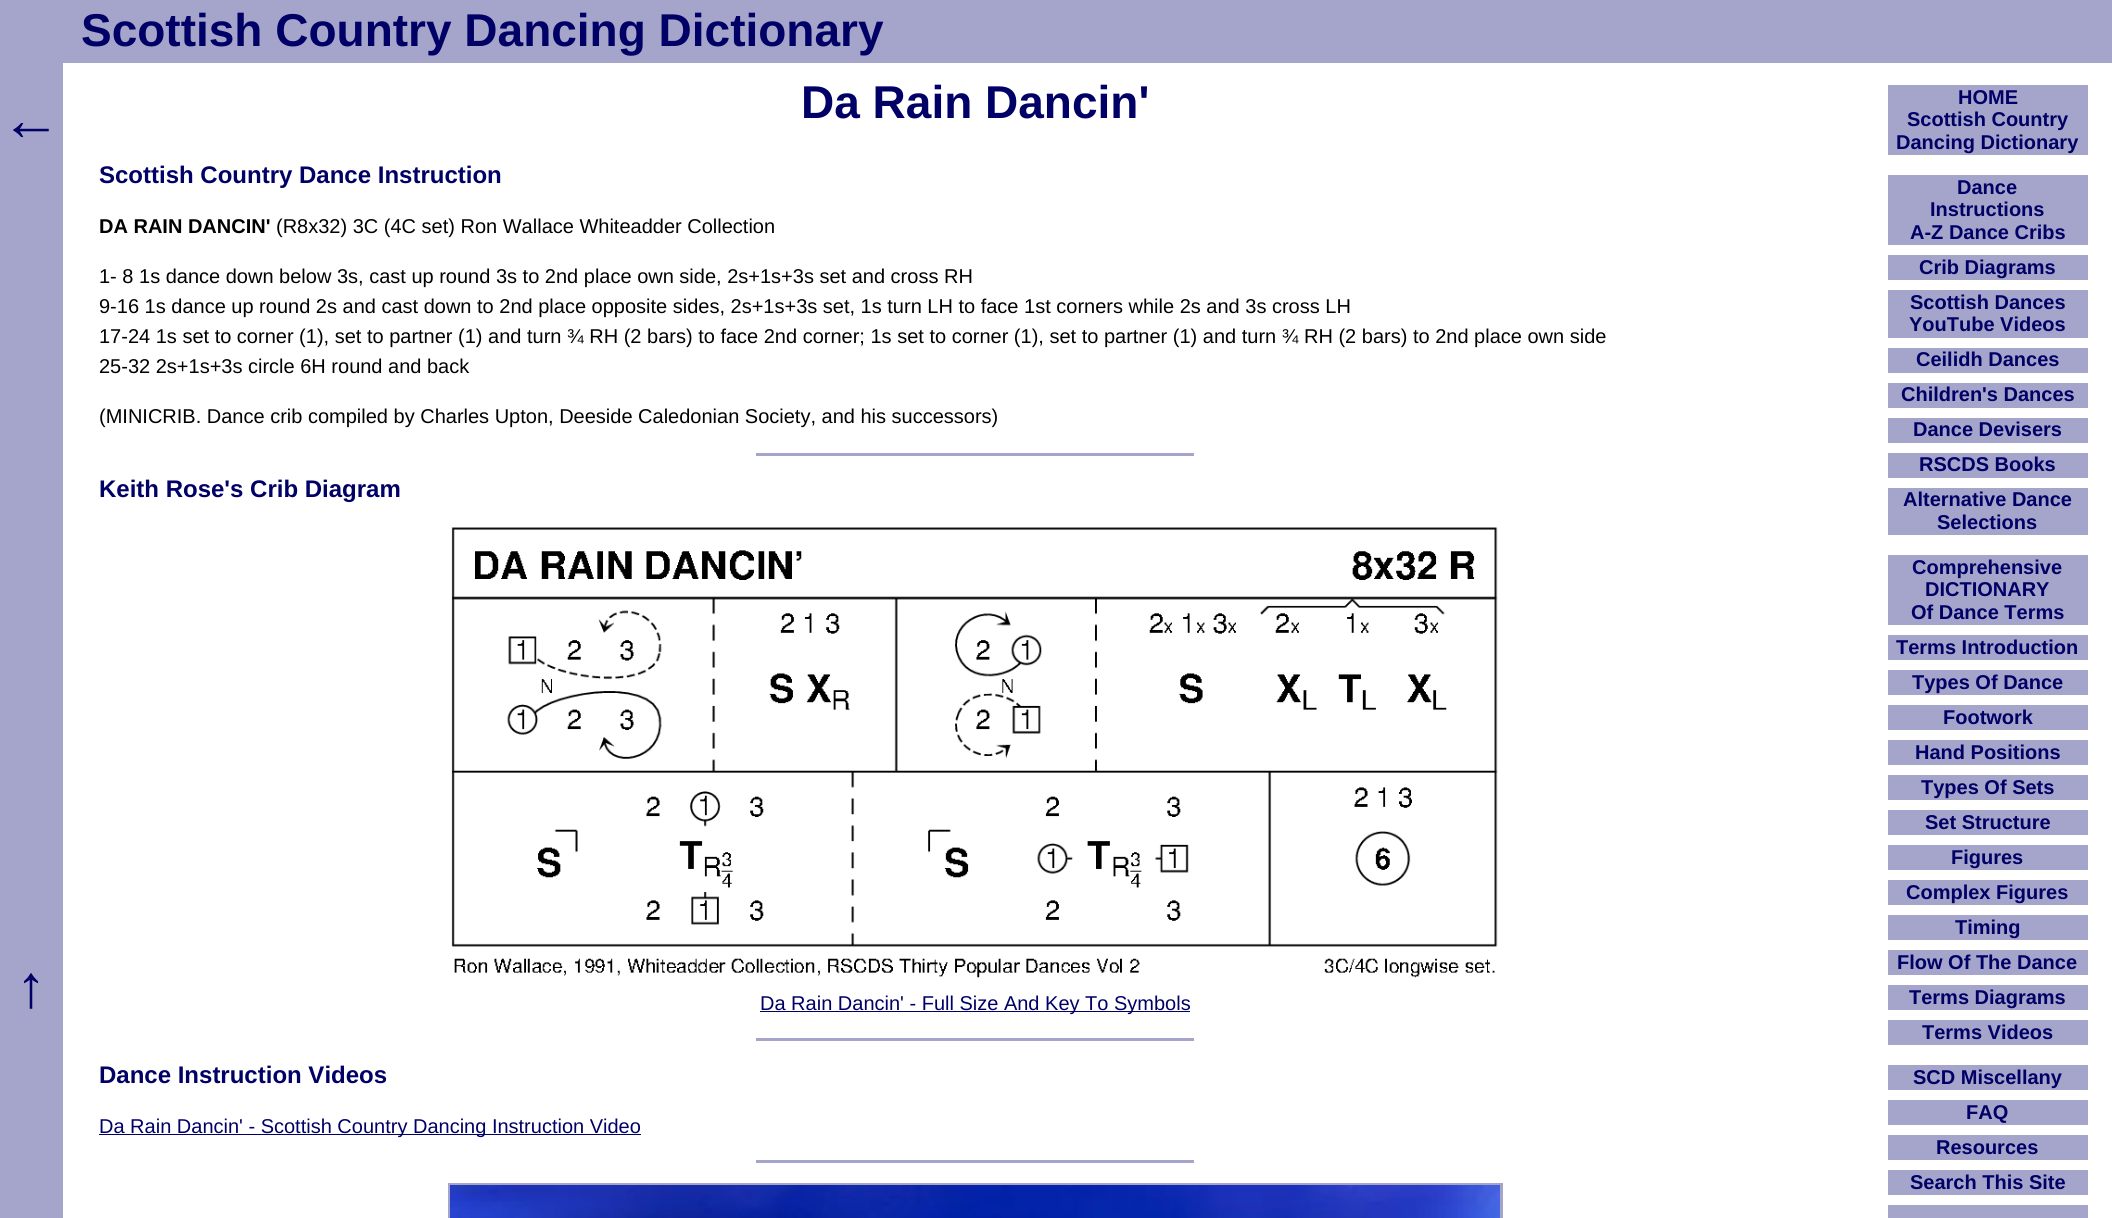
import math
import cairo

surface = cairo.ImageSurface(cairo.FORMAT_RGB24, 2112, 1218)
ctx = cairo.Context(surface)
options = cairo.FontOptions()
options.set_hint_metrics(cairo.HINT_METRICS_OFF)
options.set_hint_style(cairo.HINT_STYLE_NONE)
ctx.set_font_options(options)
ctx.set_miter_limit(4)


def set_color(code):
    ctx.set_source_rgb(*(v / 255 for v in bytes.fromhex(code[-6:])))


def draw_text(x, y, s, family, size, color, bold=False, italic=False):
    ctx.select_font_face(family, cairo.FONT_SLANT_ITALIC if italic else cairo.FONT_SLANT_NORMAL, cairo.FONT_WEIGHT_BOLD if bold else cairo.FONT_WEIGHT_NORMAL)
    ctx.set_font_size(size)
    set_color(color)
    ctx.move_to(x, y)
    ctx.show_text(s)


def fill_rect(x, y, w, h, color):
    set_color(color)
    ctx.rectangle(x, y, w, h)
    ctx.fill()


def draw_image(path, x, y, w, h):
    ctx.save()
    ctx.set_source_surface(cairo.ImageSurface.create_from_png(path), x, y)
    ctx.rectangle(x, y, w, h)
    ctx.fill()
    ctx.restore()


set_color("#ffffff")
ctx.paint()
fill_rect(0, 0, 63, 1218, "#a5a5cb")
fill_rect(63, 0, 2049, 63, "#a5a5cb")
draw_text(81, 46, "Scottish Country Dancing Dictionary", "Liberation Sans", 46, "#000066", bold=True)
draw_text(1, 140, "←", "Liberation Sans", 60, "#000066")
draw_text(801, 118, "Da Rain Dancin'", "Liberation Sans", 46, "#000066", bold=True)
draw_text(99, 183, "Scottish Country Dance Instruction", "Liberation Sans", 24, "#000066", bold=True)
draw_text(99, 233, "DA RAIN DANCIN'", "Liberation Sans", 20, "#000000", bold=True)
draw_text(276, 233, "(R8x32) 3C (4C set) Ron Wallace Whiteadder Collection", "Liberation Sans", 20, "#000000")
draw_text(99, 283, "1- 8 1s dance down below 3s, cast up round 3s to 2nd place own side, 2s+1s+3s set and cross RH", "Liberation Sans", 20, "#000000")
draw_text(99, 313, "9-16 1s dance up round 2s and cast down to 2nd place opposite sides, 2s+1s+3s set, 1s turn LH to face 1st corners while 2s and 3s cross LH", "Liberation Sans", 20, "#000000")
draw_text(99, 343, "17-24 1s set to corner (1), set to partner (1) and turn ¾ RH (2 bars) to face 2nd corner; 1s set to corner (1), set to partner (1) and turn ¾ RH (2 bars) to 2nd place own side", "Liberation Sans", 20, "#000000")
draw_text(99, 373, "25-32 2s+1s+3s circle 6H round and back", "Liberation Sans", 20, "#000000")
draw_text(99, 423, "(MINICRIB. Dance crib compiled by Charles Upton, Deeside Caledonian Society, and his successors)", "Liberation Sans", 20, "#000000")
fill_rect(756, 453, 438, 3, "#a5a5cb")
draw_text(99, 497, "Keith Rose's Crib Diagram", "Liberation Sans", 24, "#000066", bold=True)
draw_image("assets/img1.png", 451, 527, 1047, 451)
fill_rect(760, 1011, 430, 1, "#000066")
draw_text(760, 1010, "Da Rain Dancin' - Full Size And Key To Symbols", "Liberation Sans", 20, "#000066")
fill_rect(756, 1038, 438, 3, "#a5a5cb")
draw_text(99, 1083, "Dance Instruction Videos", "Liberation Sans", 24, "#000066", bold=True)
fill_rect(99, 1134, 542, 1, "#000066")
draw_text(99, 1133, "Da Rain Dancin' - Scottish Country Dancing Instruction Video", "Liberation Sans", 20, "#000066")
fill_rect(756, 1160, 438, 3, "#a5a5cb")
ctx.rectangle(449.5, 1184.5, 1052, 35)
ctx.set_line_width(3)
ctx.stroke()
draw_image("assets/img2.png", 450, 1185, 1050, 33)
fill_rect(1888, 85, 200, 70, "#a5a5cb")
draw_text(1958, 104, "HOME", "Liberation Sans", 20, "#000066", bold=True)
draw_text(1907, 126, "Scottish Country", "Liberation Sans", 20, "#000066", bold=True)
draw_text(1896, 149, "Dancing Dictionary", "Liberation Sans", 20, "#000066", bold=True)
fill_rect(1888, 175, 200, 70, "#a5a5cb")
draw_text(1957, 194, "Dance", "Liberation Sans", 20, "#000066", bold=True)
draw_text(1930, 216, "Instructions", "Liberation Sans", 20, "#000066", bold=True)
draw_text(1910, 239, "A-Z Dance Cribs", "Liberation Sans", 20, "#000066", bold=True)
fill_rect(1888, 255, 200, 25, "#a5a5cb")
draw_text(1919, 274, "Crib Diagrams", "Liberation Sans", 20, "#000066", bold=True)
fill_rect(1888, 290, 200, 48, "#a5a5cb")
draw_text(1910, 309, "Scottish Dances", "Liberation Sans", 20, "#000066", bold=True)
draw_text(1909, 331, "YouTube Videos", "Liberation Sans", 20, "#000066", bold=True)
fill_rect(1888, 348, 200, 25, "#a5a5cb")
draw_text(1916, 366, "Ceilidh Dances", "Liberation Sans", 20, "#000066", bold=True)
fill_rect(1888, 383, 200, 25, "#a5a5cb")
draw_text(1901, 401, "Children's Dances", "Liberation Sans", 20, "#000066", bold=True)
fill_rect(1888, 418, 200, 25, "#a5a5cb")
draw_text(1913, 436, "Dance Devisers", "Liberation Sans", 20, "#000066", bold=True)
fill_rect(1888, 453, 200, 25, "#a5a5cb")
draw_text(1919, 471, "RSCDS Books", "Liberation Sans", 20, "#000066", bold=True)
fill_rect(1888, 488, 200, 47, "#a5a5cb")
draw_text(1903, 506, "Alternative Dance", "Liberation Sans", 20, "#000066", bold=True)
draw_text(1937, 529, "Selections", "Liberation Sans", 20, "#000066", bold=True)
fill_rect(1888, 555, 200, 70, "#a5a5cb")
draw_text(1912, 574, "Comprehensive", "Liberation Sans", 20, "#000066", bold=True)
draw_text(1925, 596, "DICTIONARY", "Liberation Sans", 20, "#000066", bold=True)
draw_text(1911, 619, "Of Dance Terms", "Liberation Sans", 20, "#000066", bold=True)
fill_rect(1888, 635, 200, 25, "#a5a5cb")
draw_text(1896, 654, "Terms Introduction", "Liberation Sans", 20, "#000066", bold=True)
fill_rect(1888, 670, 200, 25, "#a5a5cb")
draw_text(1912, 689, "Types Of Dance", "Liberation Sans", 20, "#000066", bold=True)
fill_rect(1888, 705, 200, 25, "#a5a5cb")
draw_text(1943, 724, "Footwork", "Liberation Sans", 20, "#000066", bold=True)
fill_rect(1888, 740, 200, 25, "#a5a5cb")
draw_text(1915, 759, "Hand Positions", "Liberation Sans", 20, "#000066", bold=True)
fill_rect(1888, 775, 200, 25, "#a5a5cb")
draw_text(1921, 794, "Types Of Sets", "Liberation Sans", 20, "#000066", bold=True)
fill_rect(1888, 810, 200, 25, "#a5a5cb")
draw_text(1925, 829, "Set Structure", "Liberation Sans", 20, "#000066", bold=True)
fill_rect(1888, 845, 200, 25, "#a5a5cb")
draw_text(1951, 864, "Figures", "Liberation Sans", 20, "#000066", bold=True)
fill_rect(1888, 880, 200, 25, "#a5a5cb")
draw_text(1906, 899, "Complex Figures", "Liberation Sans", 20, "#000066", bold=True)
fill_rect(1888, 915, 200, 25, "#a5a5cb")
draw_text(1955, 934, "Timing", "Liberation Sans", 20, "#000066", bold=True)
fill_rect(1888, 950, 200, 25, "#a5a5cb")
draw_text(1897, 969, "Flow Of The Dance", "Liberation Sans", 20, "#000066", bold=True)
fill_rect(1888, 985, 200, 25, "#a5a5cb")
draw_text(1909, 1004, "Terms Diagrams", "Liberation Sans", 20, "#000066", bold=True)
fill_rect(1888, 1020, 200, 25, "#a5a5cb")
draw_text(1922, 1039, "Terms Videos", "Liberation Sans", 20, "#000066", bold=True)
fill_rect(1888, 1065, 200, 25, "#a5a5cb")
draw_text(1913, 1084, "SCD Miscellany", "Liberation Sans", 20, "#000066", bold=True)
fill_rect(1888, 1100, 200, 25, "#a5a5cb")
draw_text(1966, 1119, "FAQ", "Liberation Sans", 20, "#000066", bold=True)
fill_rect(1888, 1135, 200, 25, "#a5a5cb")
draw_text(1936, 1154, "Resources", "Liberation Sans", 20, "#000066", bold=True)
fill_rect(1888, 1170, 200, 25, "#a5a5cb")
draw_text(1910, 1189, "Search This Site", "Liberation Sans", 20, "#000066", bold=True)
fill_rect(1888, 1205, 200, 13, "#a5a5cb")
draw_text(16, 1007, "↑", "Liberation Sans", 60, "#000066")
surface.write_to_png("output.png")
